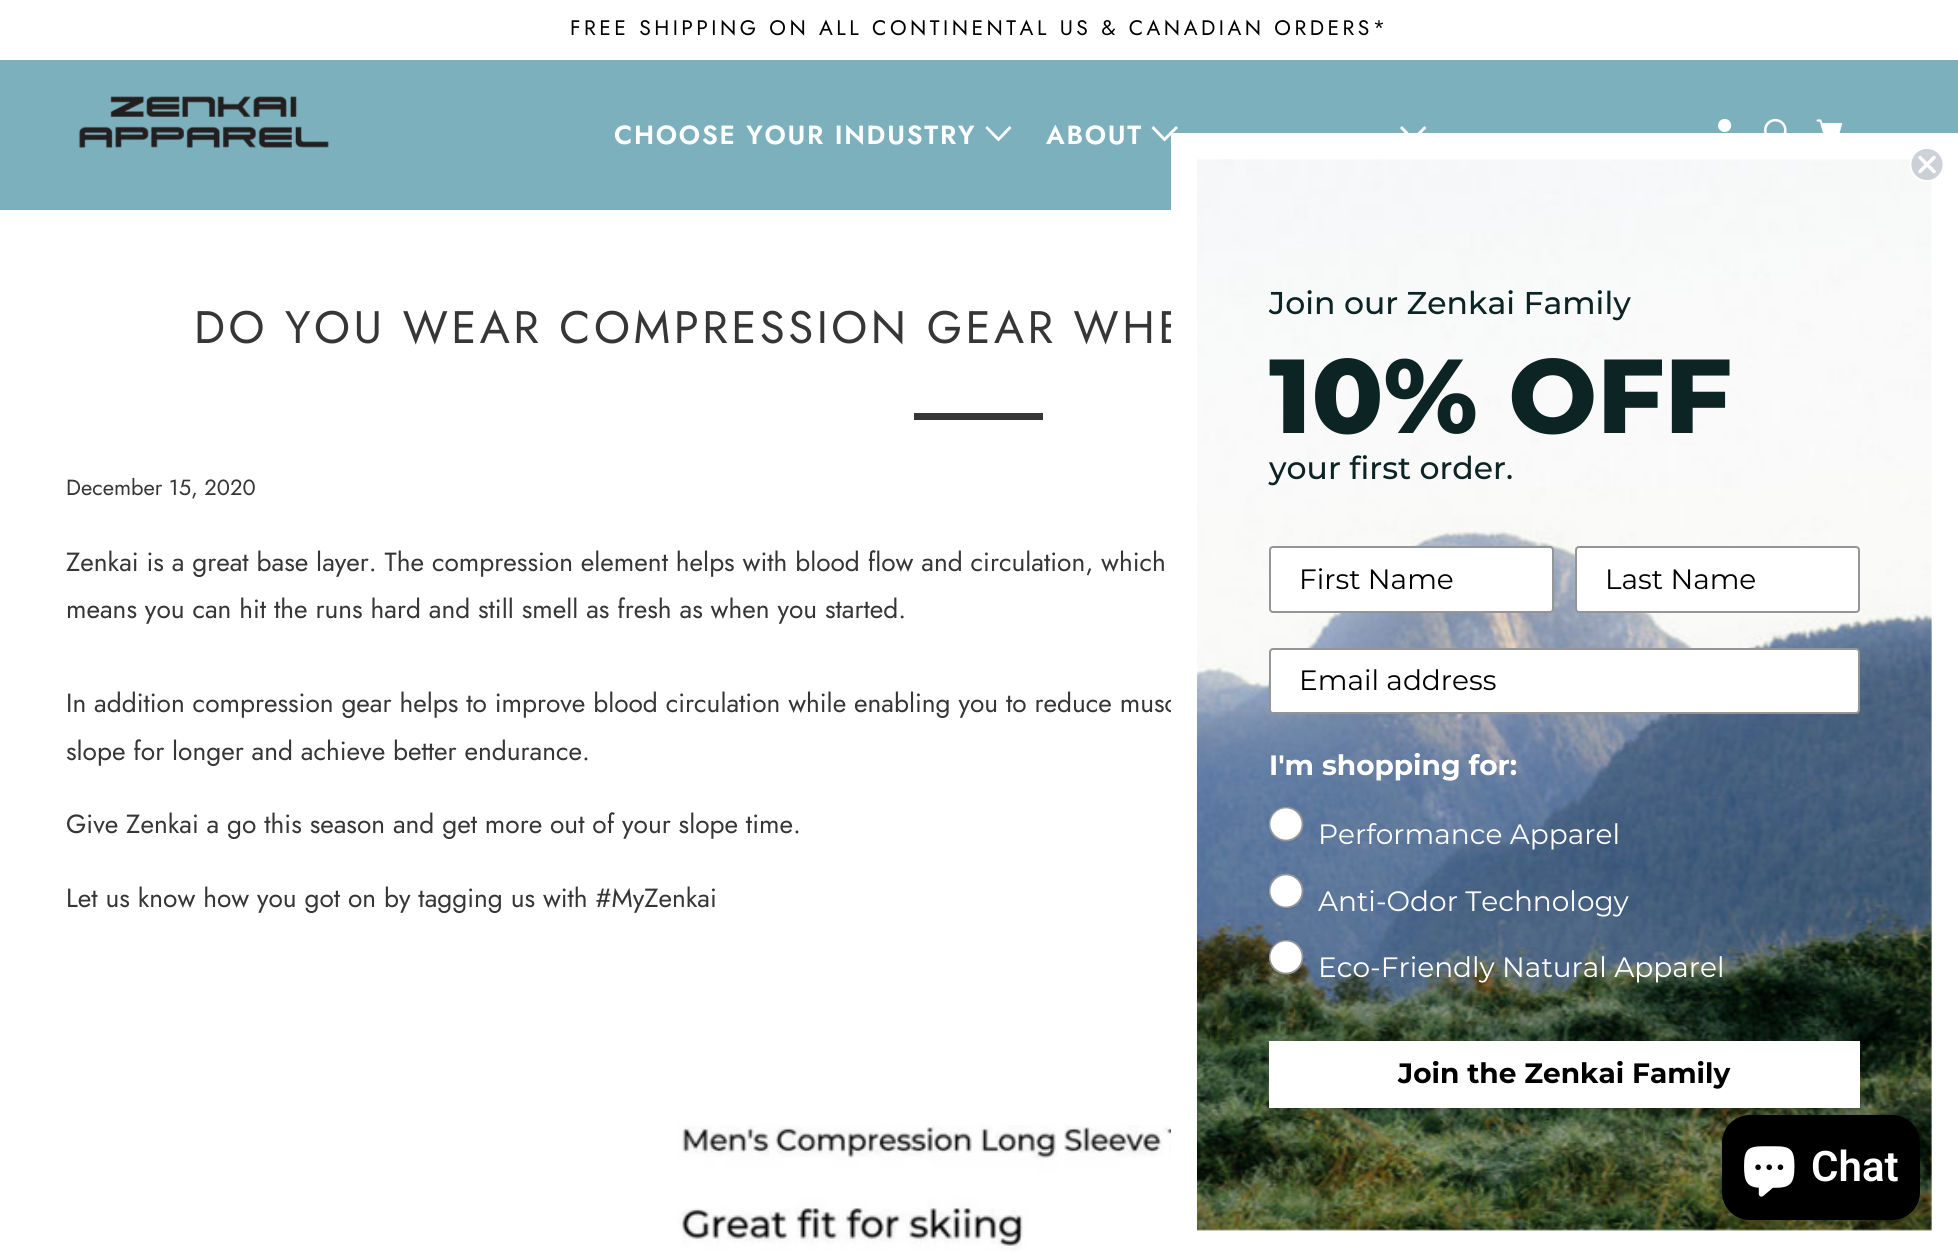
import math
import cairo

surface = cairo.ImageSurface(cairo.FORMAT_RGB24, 1958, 1255)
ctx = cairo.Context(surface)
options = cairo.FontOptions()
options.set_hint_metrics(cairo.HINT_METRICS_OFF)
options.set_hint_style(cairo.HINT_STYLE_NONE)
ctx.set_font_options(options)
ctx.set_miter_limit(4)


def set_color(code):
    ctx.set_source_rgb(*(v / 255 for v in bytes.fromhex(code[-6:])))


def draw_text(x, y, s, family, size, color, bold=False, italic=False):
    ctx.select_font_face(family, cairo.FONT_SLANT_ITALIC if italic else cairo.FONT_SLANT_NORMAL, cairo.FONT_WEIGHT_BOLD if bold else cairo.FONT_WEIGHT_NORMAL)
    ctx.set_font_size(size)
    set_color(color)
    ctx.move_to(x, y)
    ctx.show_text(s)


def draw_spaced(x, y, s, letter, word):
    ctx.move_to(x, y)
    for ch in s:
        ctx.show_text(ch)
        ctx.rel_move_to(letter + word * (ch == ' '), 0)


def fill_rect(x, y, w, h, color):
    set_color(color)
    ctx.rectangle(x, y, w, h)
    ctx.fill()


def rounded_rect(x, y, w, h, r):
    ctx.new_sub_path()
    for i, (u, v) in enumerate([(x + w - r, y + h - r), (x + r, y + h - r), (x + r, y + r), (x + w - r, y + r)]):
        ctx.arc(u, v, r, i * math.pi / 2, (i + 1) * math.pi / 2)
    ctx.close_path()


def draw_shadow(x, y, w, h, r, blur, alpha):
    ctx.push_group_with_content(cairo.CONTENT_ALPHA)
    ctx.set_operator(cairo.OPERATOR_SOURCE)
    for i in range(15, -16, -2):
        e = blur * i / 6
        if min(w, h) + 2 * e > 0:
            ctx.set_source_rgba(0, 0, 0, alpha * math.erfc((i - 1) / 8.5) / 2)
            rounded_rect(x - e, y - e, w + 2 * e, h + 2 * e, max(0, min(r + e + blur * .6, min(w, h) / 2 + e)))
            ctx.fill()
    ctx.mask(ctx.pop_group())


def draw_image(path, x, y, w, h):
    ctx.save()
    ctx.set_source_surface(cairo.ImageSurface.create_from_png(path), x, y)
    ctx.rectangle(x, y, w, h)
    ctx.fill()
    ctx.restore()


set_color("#ffffff")
ctx.paint()
ctx.select_font_face("Jost")
ctx.set_font_size(21)
set_color("#000000")
draw_spaced(570, 35, "FREE SHIPPING ON ALL CONTINENTAL US & CANADIAN ORDERS*", 3.5, 0)
fill_rect(0, 60, 1958, 150, "#7db0bd")
draw_image("assets/img1.png", 78, 96, 251, 52)
ctx.select_font_face("Jost SemiBold")
ctx.set_font_size(26.25)
set_color("#ffffff")
draw_spaced(614, 144, "CHOOSE YOUR INDUSTRY", 1.75, 0)
ctx.new_path()
ctx.move_to(992, 135)
ctx.line_to(985.5, 128)
ctx.line_to(987, 126)
ctx.line_to(998.5, 137.5)
ctx.line_to(1009.5, 126)
ctx.line_to(1011.5, 128)
ctx.line_to(998.5, 141.5)
ctx.close_path()
ctx.fill()
draw_spaced(1046, 144, "ABOUT", 1.75, 0)
ctx.new_path()
ctx.move_to(1158, 135)
ctx.line_to(1151.5, 128)
ctx.line_to(1153.5, 126)
ctx.line_to(1164.5, 137.5)
ctx.line_to(1176, 126)
ctx.line_to(1178, 128)
ctx.line_to(1164.5, 141.5)
ctx.close_path()
ctx.fill()
ctx.new_path()
ctx.move_to(1406.5, 135)
ctx.line_to(1400, 128)
ctx.line_to(1402, 126)
ctx.line_to(1413, 137.5)
ctx.line_to(1424.5, 126)
ctx.line_to(1426.5, 128)
ctx.line_to(1413, 141.5)
ctx.close_path()
ctx.fill()
draw_image("assets/img2.png", 1718, 118, 14, 14)
draw_image("assets/img3.png", 1764, 118, 23, 15)
draw_image("assets/img4.png", 1816, 119, 27, 14)
ctx.select_font_face("Jost")
ctx.set_font_size(45.5)
set_color("#363636")
draw_spaced(194, 343, "DO YOU WEAR COMPRESSION GEAR WHE", 3.5, 0)
fill_rect(914, 413, 129, 7, "#363636")
draw_text(66, 495, "December 15, 2020", "Jost", 21.9, "#363636")
draw_text(66, 571, "Zenkai is a great base layer. The compression element helps with blood flow and circulation, which", "Jost", 26.25, "#363636")
draw_text(66, 618, "means you can hit the runs hard and still smell as fresh as when you started.", "Jost", 26.25, "#363636")
draw_text(66, 712, "In addition compression gear helps to improve blood circulation while enabling you to reduce musc", "Jost", 26.25, "#363636")
draw_text(66, 760, "slope for longer and achieve better endurance.", "Jost", 26.25, "#363636")
draw_text(66, 833, "Give Zenkai a go this season and get more out of your slope time.", "Jost", 26.25, "#363636")
draw_text(66, 907, "Let us know how you got on by tagging us with #MyZenkai", "Jost", 26.25, "#363636")
draw_image("assets/img5.png", 678, 1125, 493, 126)
fill_rect(1197, 159, 735, 51, "#ffffff")
draw_image("assets/img6.png", 1197, 159, 735, 1072)
ctx.rectangle(1184, 146, 761, 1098)
ctx.set_line_width(26)
ctx.stroke()
ctx.set_source_rgba(0.706, 0.733, 0.765, 0.65)
ctx.arc(1927, 164.5, 16.5, 0, 2 * math.pi)
ctx.fill_preserve()
set_color("#ffffff")
ctx.set_line_width(1.8)
ctx.stroke()
ctx.new_path()
ctx.move_to(1920, 157.5)
ctx.line_to(1934, 171.5)
ctx.move_to(1920, 171.5)
ctx.line_to(1934, 157.5)
ctx.close_path()
ctx.set_line_width(3.5)
ctx.set_line_cap(cairo.LINE_CAP_ROUND)
ctx.set_line_join(cairo.LINE_JOIN_ROUND)
ctx.stroke()
draw_text(1269, 314, "Join our Zenkai Family", "Montserrat Medium", 31.5, "#0c2424")
draw_text(1269, 433, "10% OFF", "Montserrat ExtraBold", 105, "#0c2424")
draw_text(1269, 479, "your first order.", "Montserrat Medium", 31.5, "#0c2424")
set_color("#ffffff")
rounded_rect(1270, 547, 283, 65, 3)
ctx.fill_preserve()
set_color("#949596")
ctx.set_line_width(2)
ctx.set_line_cap(cairo.LINE_CAP_BUTT)
ctx.set_line_join(cairo.LINE_JOIN_MITER)
ctx.stroke()
draw_text(1299, 589, "First Name", "Montserrat", 28, "#000000")
set_color("#ffffff")
rounded_rect(1576, 547, 283, 65, 3)
ctx.fill_preserve()
set_color("#949596")
ctx.stroke()
draw_text(1605, 589, "Last Name", "Montserrat", 28, "#000000")
set_color("#ffffff")
rounded_rect(1270, 649, 589, 64, 3)
ctx.fill_preserve()
set_color("#949596")
ctx.stroke()
draw_text(1299, 690, "Email address", "Montserrat", 28, "#000000")
draw_text(1269, 775, "I'm shopping for:", "Montserrat", 28, "#ffffff", bold=True)
ctx.new_path()
ctx.arc(1286, 824, 16.5, 0, 2 * math.pi)
ctx.fill()
ctx.save()
rounded_rect(1269, 807, 35, 35, 17.5)
ctx.clip()
ctx.arc(1286, 824, 16.5, 0, 2 * math.pi)
set_color("#949596")
ctx.set_line_width(1.8)
ctx.stroke()
ctx.restore()
draw_text(1318, 844, "Performance Apparel", "Montserrat", 28, "#ffffff")
ctx.new_path()
ctx.arc(1286, 891, 16.5, 0, 2 * math.pi)
ctx.fill()
ctx.save()
rounded_rect(1269, 873, 35, 35, 17.5)
ctx.clip()
ctx.arc(1286, 891, 16.5, 0, 2 * math.pi)
set_color("#949596")
ctx.set_line_width(1.8)
ctx.stroke()
ctx.restore()
draw_text(1318, 911, "Anti-Odor Technology", "Montserrat", 28, "#ffffff")
ctx.new_path()
ctx.arc(1286, 957, 16.5, 0, 2 * math.pi)
ctx.fill()
ctx.save()
rounded_rect(1269, 940, 35, 35, 17.5)
ctx.clip()
ctx.arc(1286, 957, 16.5, 0, 2 * math.pi)
set_color("#949596")
ctx.set_line_width(1.8)
ctx.stroke()
ctx.restore()
draw_text(1318, 977, "Eco-Friendly Natural Apparel", "Montserrat", 28, "#ffffff")
fill_rect(1269, 1041, 591, 67, "#ffffff")
draw_text(1398, 1083, "Join the Zenkai Family", "Montserrat", 28, "#000000", bold=True)
set_color("#000000")
draw_shadow(1722, 1115, 198, 105, 28, 4.5, 0.15)
set_color("#000000")
rounded_rect(1722, 1115, 198, 105, 28)
ctx.fill()
draw_image("assets/img7.png", 1744, 1146, 51, 51)
draw_text(1811, 1181, "Chat", "Roboto SemiBold", 42, "#ffffff")
surface.write_to_png("output.png")
